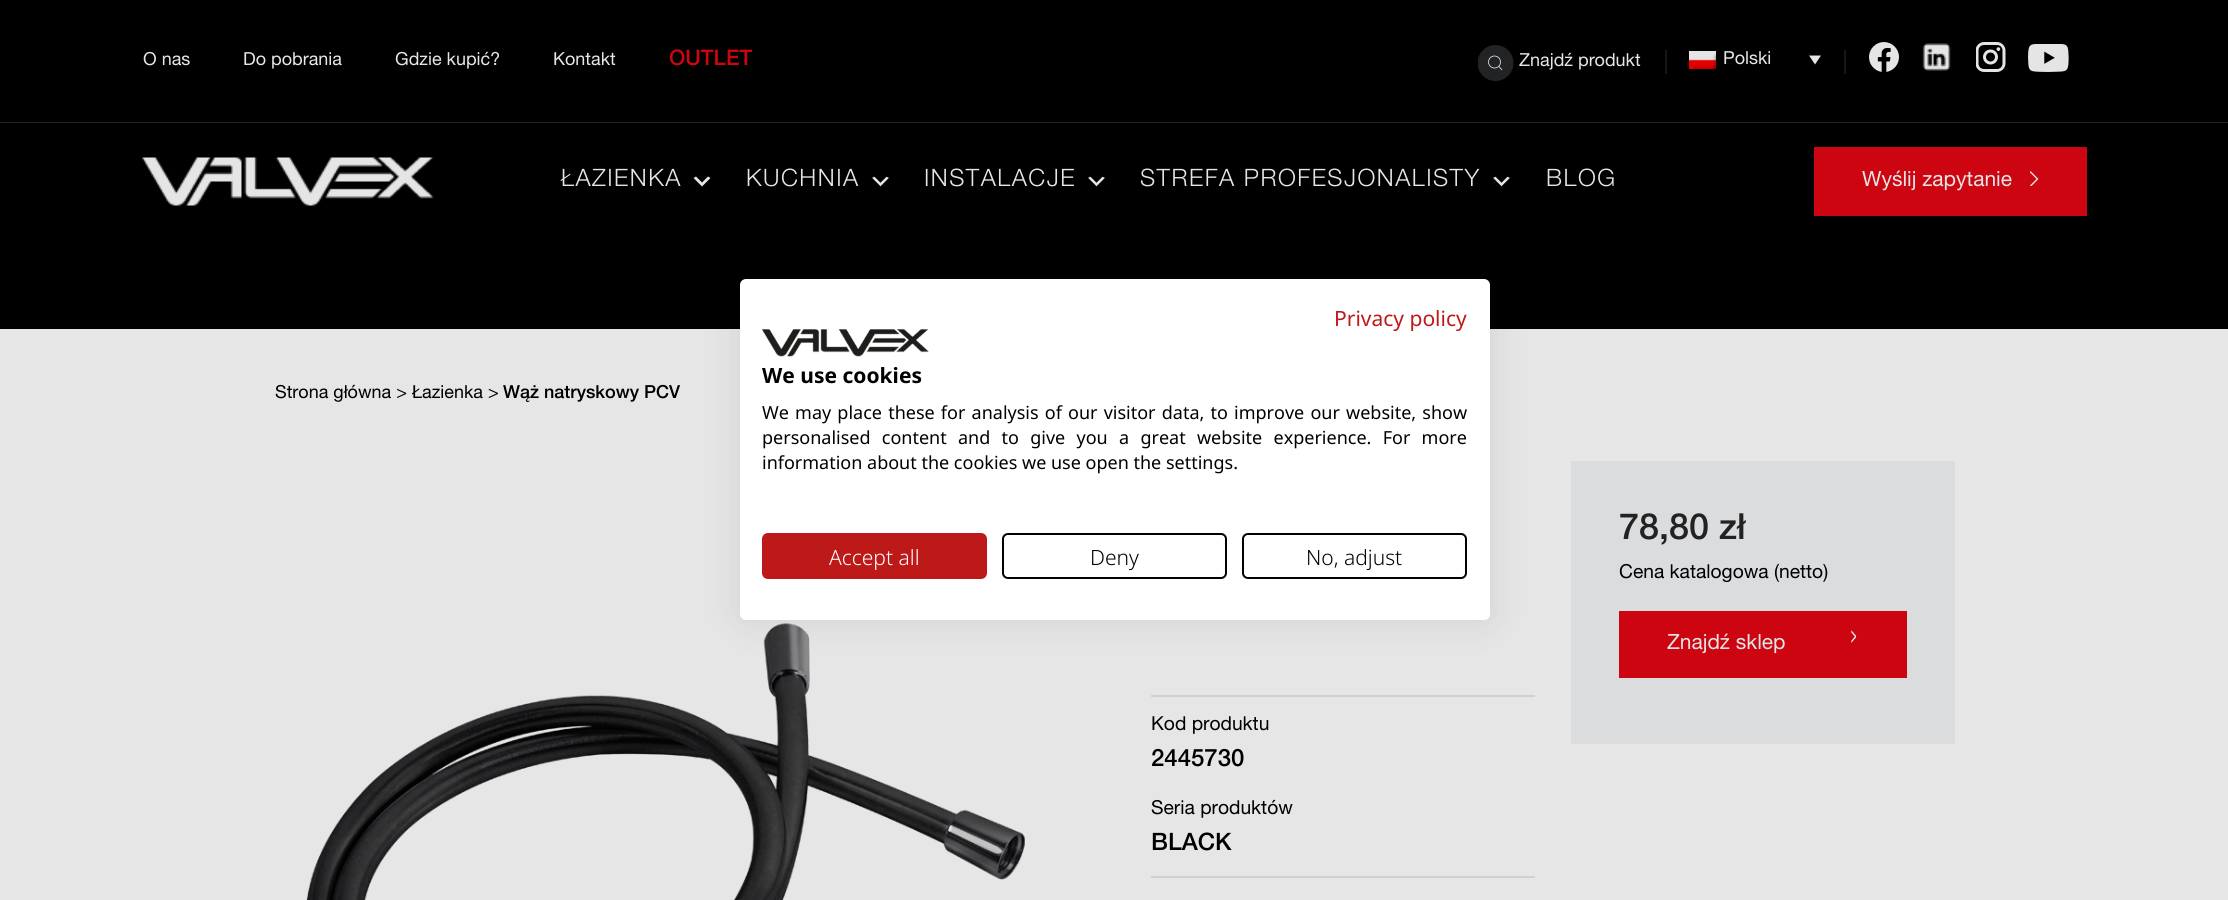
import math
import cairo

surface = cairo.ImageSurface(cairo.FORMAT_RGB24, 2228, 900)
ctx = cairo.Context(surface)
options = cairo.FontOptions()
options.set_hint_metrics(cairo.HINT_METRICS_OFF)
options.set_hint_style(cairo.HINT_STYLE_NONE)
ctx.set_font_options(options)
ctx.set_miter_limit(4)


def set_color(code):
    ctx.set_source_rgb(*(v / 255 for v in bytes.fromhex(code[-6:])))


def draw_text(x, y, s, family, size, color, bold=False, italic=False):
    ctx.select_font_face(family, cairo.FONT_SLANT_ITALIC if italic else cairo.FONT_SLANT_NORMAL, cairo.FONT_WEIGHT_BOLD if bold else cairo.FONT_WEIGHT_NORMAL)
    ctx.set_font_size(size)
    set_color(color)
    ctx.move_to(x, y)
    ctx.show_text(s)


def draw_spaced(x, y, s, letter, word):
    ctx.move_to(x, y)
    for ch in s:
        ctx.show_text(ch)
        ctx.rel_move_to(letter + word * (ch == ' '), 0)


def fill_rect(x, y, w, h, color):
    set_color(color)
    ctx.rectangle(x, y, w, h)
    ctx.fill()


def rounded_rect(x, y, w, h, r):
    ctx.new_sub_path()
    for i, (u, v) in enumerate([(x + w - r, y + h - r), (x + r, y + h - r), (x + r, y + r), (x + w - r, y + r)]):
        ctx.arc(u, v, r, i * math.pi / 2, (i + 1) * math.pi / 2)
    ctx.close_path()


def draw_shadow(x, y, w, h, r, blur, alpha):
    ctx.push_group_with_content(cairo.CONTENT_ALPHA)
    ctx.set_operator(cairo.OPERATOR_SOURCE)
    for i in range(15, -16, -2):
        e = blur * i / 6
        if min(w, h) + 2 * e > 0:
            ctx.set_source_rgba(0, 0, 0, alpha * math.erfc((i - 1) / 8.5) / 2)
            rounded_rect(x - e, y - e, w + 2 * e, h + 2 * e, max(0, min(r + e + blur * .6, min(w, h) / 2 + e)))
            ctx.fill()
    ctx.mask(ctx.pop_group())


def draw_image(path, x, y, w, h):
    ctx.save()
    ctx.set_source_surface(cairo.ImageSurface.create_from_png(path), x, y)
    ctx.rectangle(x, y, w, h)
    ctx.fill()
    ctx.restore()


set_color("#e6e6e6")
ctx.paint()
fill_rect(0, 0, 2228, 122, "#000000")
fill_rect(0, 122, 2228, 1, "#1c2532")
draw_text(143, 65, "O nas", "Helvetica Neue", 18, "#e6e6e6")
draw_text(243, 65, "Do pobrania", "Helvetica Neue", 18, "#e6e6e6")
draw_text(395, 65, "Gdzie kupić?", "Helvetica Neue", 18, "#e6e6e6")
draw_text(553, 65, "Kontakt", "Helvetica Neue", 18, "#e6e6e6")
draw_text(669, 65, "OUTLET", "Helvetica Neue Medium", 21.5, "#cc0511")
ctx.save()
ctx.rectangle(1478, 45, 36, 36)
ctx.clip()
set_color("#212325")
ctx.arc(1495.5, 63, 18, 0, 2 * math.pi)
ctx.fill()
ctx.restore()
draw_text(1519, 66, "Znajdź produkt", "Helvetica Neue", 18, "#e6e6e6")
ctx.new_path()
ctx.arc(1494.5, 62, 6, 0, 2 * math.pi)
ctx.set_line_width(0.8)
ctx.stroke()
ctx.new_path()
ctx.move_to(1499, 66.5)
ctx.line_to(1502, 70)
ctx.stroke()
fill_rect(1844, 50, 2, 24, "#161718")
fill_rect(1665, 50, 2, 24, "#161718")
draw_image("assets/img1.png", 1689, 51, 27, 18)
draw_text(1723, 64, "Polski", "Helvetica Neue", 18, "#e6e6e6")
ctx.new_path()
ctx.move_to(1809, 55.5)
ctx.line_to(1821, 55.5)
ctx.line_to(1815, 64.5)
ctx.close_path()
ctx.fill()
draw_image("assets/img2.png", 1869, 42, 30, 30)
draw_image("assets/img3.png", 1922, 43, 29, 28)
draw_image("assets/img4.png", 1976, 42, 30, 30)
draw_image("assets/img5.png", 2028, 44, 41, 28)
fill_rect(0, 123, 2228, 206, "#000000")
draw_image("assets/img6.png", 142, 157, 292, 49)
ctx.select_font_face("Helvetica Neue Light")
ctx.set_font_size(24)
set_color("#e6e6e6")
draw_spaced(561, 186, "ŁAZIENKA", 1.5, 0)
ctx.new_path()
ctx.move_to(696, 176.5)
ctx.line_to(702, 182.5)
ctx.line_to(708, 176.5)
ctx.line_to(710.5, 178)
ctx.line_to(702, 186.5)
ctx.line_to(693.5, 178)
ctx.close_path()
ctx.fill()
draw_spaced(746, 186, "KUCHNIA", 1.5, 0)
draw_image("assets/img7.png", 872, 176, 17, 11)
draw_spaced(924, 186, "INSTALACJE", 1.5, 0)
draw_image("assets/img7.png", 1088, 176, 17, 11)
draw_spaced(1140, 186, "STREFA PROFESJONALISTY", 1.5, 0)
draw_image("assets/img7.png", 1493, 176, 17, 11)
draw_spaced(1546, 186, "BLOG", 1.5, 0)
fill_rect(1814, 147, 273, 69, "#cc0511")
draw_text(1862, 186, "Wyślij zapytanie", "Helvetica Neue", 21, "#e6e6e6")
ctx.save()
ctx.rectangle(2030, 171, 9, 15)
ctx.clip()
ctx.new_path()
ctx.move_to(2030, 171.5)
ctx.line_to(2037.5, 179)
ctx.line_to(2030, 186.5)
ctx.set_line_width(1.4)
ctx.stroke()
ctx.restore()
draw_image("assets/img9.png", 306, 623, 719, 277)
set_color("#000000")
draw_shadow(740, 279, 750, 341, 6, 18, 0.1)
set_color("#ffffff")
rounded_rect(740, 279, 750, 341, 6)
ctx.fill()
draw_text(1334, 326, "Privacy policy", "Noto Sans", 21, "#be1919")
draw_image("assets/img8.png", 762, 329, 167, 28)
draw_text(762, 383, "We use cookies", "Noto Sans", 21, "#000000", bold=True)
ctx.select_font_face("Noto Sans")
ctx.set_font_size(18)
draw_spaced(762, 419, "We may place these for analysis of our visitor data, to improve our website, show", 0, 1.5)
draw_spaced(762, 444, "personalised content and to give you a great website experience. For more", 0, 6.6)
draw_text(762, 469, "information about the cookies we use open the settings.", "Noto Sans", 18, "#000000")
set_color("#be1919")
rounded_rect(763, 534, 223, 44, 5)
ctx.fill_preserve()
ctx.set_line_width(2)
ctx.stroke()
draw_text(829, 565, "Accept all", "Noto Sans Light", 21, "#ffffff")
rounded_rect(1003, 534, 223, 44, 5)
set_color("#000000")
ctx.stroke()
draw_text(1090, 565, "Deny", "Noto Sans Light", 21, "#000000")
rounded_rect(1243, 534, 223, 44, 5)
ctx.stroke()
draw_text(1306, 565, "No, adjust", "Noto Sans Light", 21, "#000000")
draw_text(275, 398, "Strona główna > Łazienka >", "Helvetica Neue", 18, "#000000")
draw_text(503, 398, "Wąż natryskowy PCV", "Helvetica Neue Medium", 18, "#000000")
fill_rect(1571, 461, 384, 283, "#dbdcdd")
draw_text(1619, 539, "78,80 zł", "Helvetica Neue Medium", 36, "#222222")
draw_text(1619, 578, "Cena katalogowa (netto)", "Helvetica Neue", 19.25, "#000000")
fill_rect(1619, 611, 288, 67, "#cc0511")
draw_text(1667, 649, "Znajdź sklep", "Helvetica Neue", 21, "#e6e6e6")
draw_text(1848, 648, "›", "Helvetica Neue ExtraLight", 42, "#e6e6e6")
fill_rect(1151, 695, 384, 2, "#ced0d4")
draw_text(1151, 730, "Kod produktu", "Helvetica Neue", 19.25, "#000000")
draw_text(1151, 766, "2445730", "Helvetica Neue Medium", 24, "#000000")
draw_text(1151, 814, "Seria produktów", "Helvetica Neue", 19.25, "#000000")
draw_text(1151, 850, "BLACK", "Helvetica Neue Medium", 24, "#000000")
fill_rect(1151, 876, 384, 2, "#ced0d4")
surface.write_to_png("output.png")
